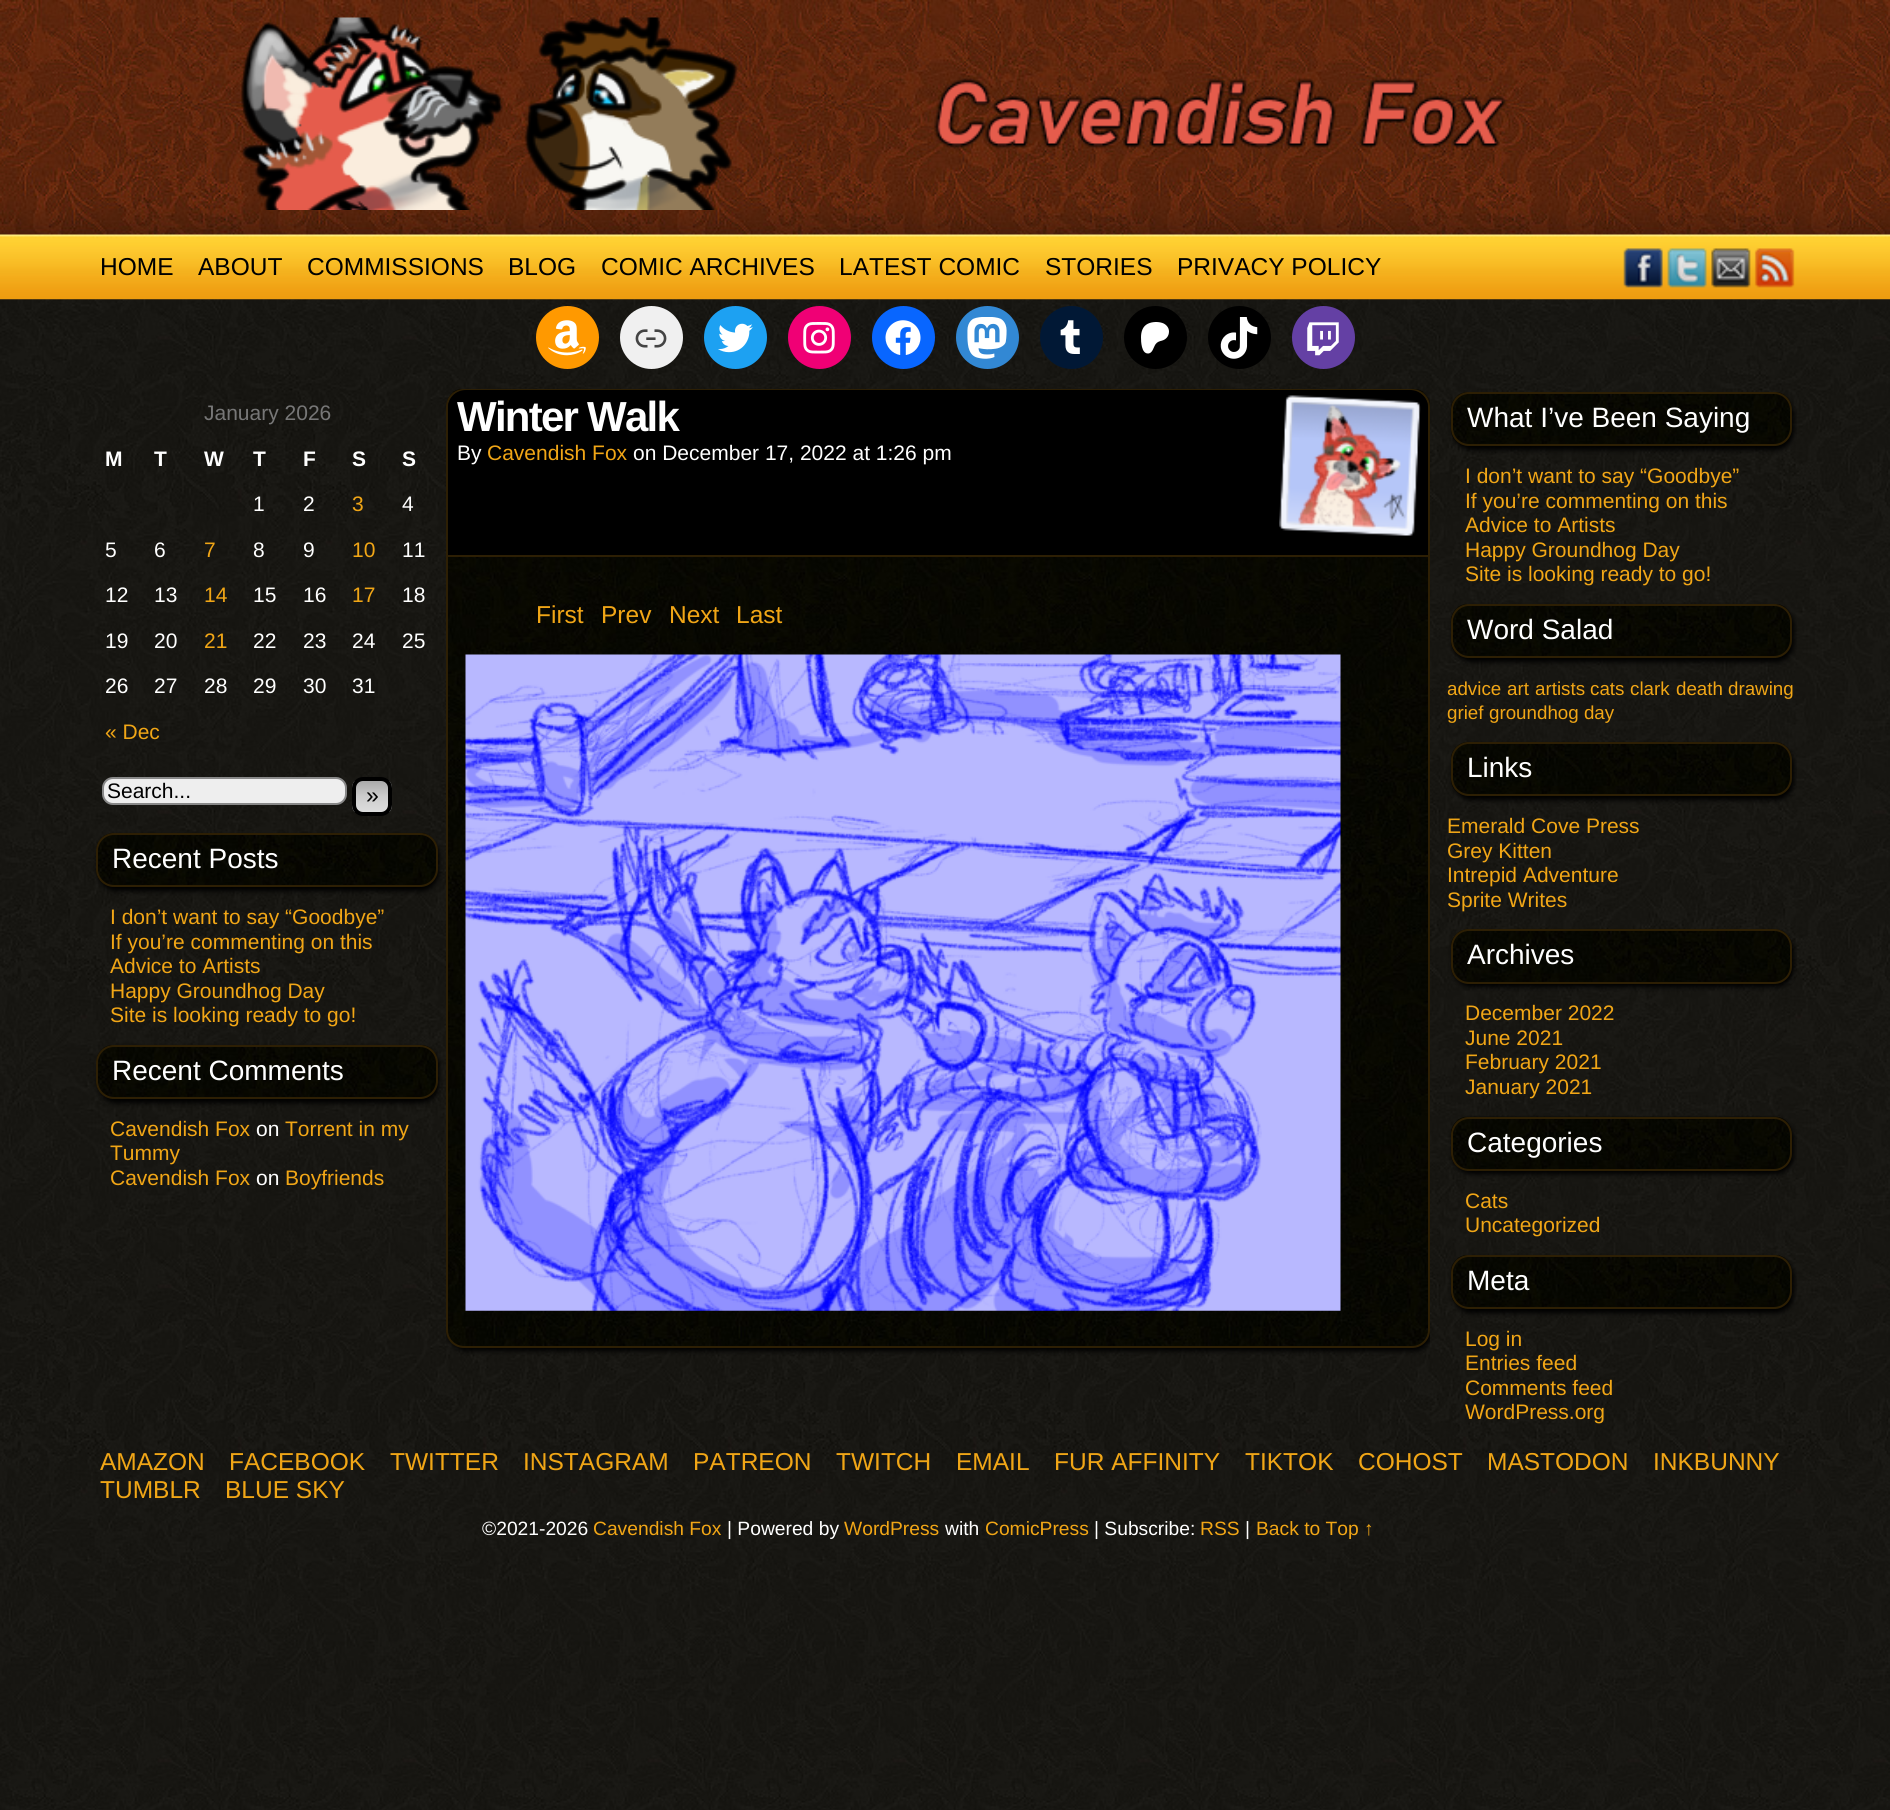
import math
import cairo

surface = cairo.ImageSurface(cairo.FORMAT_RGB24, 1890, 1810)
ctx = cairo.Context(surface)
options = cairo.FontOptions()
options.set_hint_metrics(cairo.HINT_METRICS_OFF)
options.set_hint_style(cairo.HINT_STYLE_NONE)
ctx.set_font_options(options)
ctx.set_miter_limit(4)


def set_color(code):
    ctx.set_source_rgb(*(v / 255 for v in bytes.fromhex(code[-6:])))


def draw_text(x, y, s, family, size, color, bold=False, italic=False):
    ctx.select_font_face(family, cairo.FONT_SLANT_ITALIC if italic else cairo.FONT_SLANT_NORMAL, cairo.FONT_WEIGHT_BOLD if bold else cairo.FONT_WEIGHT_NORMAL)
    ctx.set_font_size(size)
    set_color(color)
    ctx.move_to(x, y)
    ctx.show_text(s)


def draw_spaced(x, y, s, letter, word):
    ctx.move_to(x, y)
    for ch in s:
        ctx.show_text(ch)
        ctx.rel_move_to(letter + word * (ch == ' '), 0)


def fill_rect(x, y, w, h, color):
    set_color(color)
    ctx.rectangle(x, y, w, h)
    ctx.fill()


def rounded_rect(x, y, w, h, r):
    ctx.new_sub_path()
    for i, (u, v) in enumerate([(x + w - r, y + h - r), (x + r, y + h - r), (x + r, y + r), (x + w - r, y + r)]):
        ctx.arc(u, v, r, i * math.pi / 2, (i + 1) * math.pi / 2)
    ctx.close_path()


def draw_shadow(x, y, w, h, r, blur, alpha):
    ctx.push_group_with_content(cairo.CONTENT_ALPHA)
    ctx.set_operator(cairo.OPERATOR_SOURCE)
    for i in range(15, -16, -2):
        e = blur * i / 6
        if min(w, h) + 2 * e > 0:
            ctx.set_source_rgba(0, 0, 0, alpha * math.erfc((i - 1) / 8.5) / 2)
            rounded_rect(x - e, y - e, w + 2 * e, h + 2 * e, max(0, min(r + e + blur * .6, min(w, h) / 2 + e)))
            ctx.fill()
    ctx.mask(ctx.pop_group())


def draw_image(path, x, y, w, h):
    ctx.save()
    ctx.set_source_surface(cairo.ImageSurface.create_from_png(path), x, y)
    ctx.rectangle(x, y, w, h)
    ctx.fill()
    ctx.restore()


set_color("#ffffff")
ctx.paint()
draw_image("assets/img1.png", 0, 299, 1890, 1511)
draw_image("assets/img2.png", 0, 0, 1890, 300)
draw_image("assets/img3.png", 241, 17, 1266, 193)
draw_text(100, 275, "HOME", "Liberation Sans", 24.5, "#000000")
draw_text(198, 275, "ABOUT", "Liberation Sans", 24.5, "#000000")
draw_text(307, 275, "COMMISSIONS", "Liberation Sans", 24.5, "#000000")
draw_text(508, 275, "BLOG", "Liberation Sans", 24.5, "#000000")
draw_text(601, 275, "COMIC ARCHIVES", "Liberation Sans", 24.5, "#000000")
draw_text(839, 275, "LATEST COMIC", "Liberation Sans", 24.5, "#000000")
draw_text(1045, 275, "STORIES", "Liberation Sans", 24.5, "#000000")
draw_text(1177, 275, "PRIVACY POLICY", "Liberation Sans", 24.5, "#000000")
draw_image("assets/img4.png", 1623, 248, 40, 40)
draw_image("assets/img5.png", 1667, 248, 40, 40)
draw_image("assets/img6.png", 1711, 248, 40, 40)
draw_image("assets/img7.png", 1754, 248, 41, 40)
set_color("#ff9900")
ctx.arc(567.5, 337.5, 31.5, 0, 2 * math.pi)
ctx.fill()
draw_image("assets/img8.png", 548, 320, 38, 36)
set_color("#f0f0f0")
ctx.arc(651.5, 337.5, 31.5, 0, 2 * math.pi)
ctx.fill()
draw_image("assets/img9.png", 635, 329, 32, 19)
set_color("#1da1f2")
ctx.arc(735.5, 337.5, 31.5, 0, 2 * math.pi)
ctx.fill()
draw_image("assets/img10.png", 718, 323, 35, 30)
set_color("#f00075")
ctx.arc(819.5, 337.5, 31.5, 0, 2 * math.pi)
ctx.fill()
draw_image("assets/img11.png", 803, 322, 32, 32)
set_color("#0866ff")
ctx.arc(903.5, 337.5, 31.5, 0, 2 * math.pi)
ctx.fill()
draw_image("assets/img12.png", 885, 320, 36, 35)
set_color("#3288d4")
ctx.arc(987.5, 337.5, 31.5, 0, 2 * math.pi)
ctx.fill()
draw_image("assets/img13.png", 967, 317, 40, 42)
set_color("#011835")
ctx.arc(1071.5, 337.5, 31.5, 0, 2 * math.pi)
ctx.fill()
draw_image("assets/img14.png", 1060, 320, 20, 34)
set_color("#000000")
ctx.arc(1155.5, 337.5, 31.5, 0, 2 * math.pi)
ctx.fill()
draw_image("assets/img15.png", 1141, 322, 28, 32)
ctx.arc(1239.5, 337.5, 31.5, 0, 2 * math.pi)
ctx.fill()
draw_image("assets/img16.png", 1220, 317, 38, 42)
set_color("#6440a4")
ctx.arc(1323.5, 337.5, 31.5, 0, 2 * math.pi)
ctx.fill()
draw_image("assets/img17.png", 1307, 322, 32, 34)
draw_text(204, 420, "January 2026", "Liberation Sans", 21, "#777777")
draw_text(105, 466, "M", "Liberation Sans", 21, "#ffffff", bold=True)
draw_text(154, 466, "T", "Liberation Sans", 21, "#ffffff", bold=True)
draw_text(204, 466, "W", "Liberation Sans", 21, "#ffffff", bold=True)
draw_text(253, 466, "T", "Liberation Sans", 21, "#ffffff", bold=True)
draw_text(303, 466, "F", "Liberation Sans", 21, "#ffffff", bold=True)
draw_text(352, 466, "S", "Liberation Sans", 21, "#ffffff", bold=True)
draw_text(402, 466, "S", "Liberation Sans", 21, "#ffffff", bold=True)
draw_text(253, 511, "1", "Liberation Sans", 21, "#ffffff")
draw_text(303, 511, "2", "Liberation Sans", 21, "#ffffff")
draw_text(352, 511, "3", "Liberation Sans", 21, "#f1a616")
draw_text(402, 511, "4", "Liberation Sans", 21, "#ffffff")
draw_text(105, 557, "5", "Liberation Sans", 21, "#ffffff")
draw_text(154, 557, "6", "Liberation Sans", 21, "#ffffff")
draw_text(204, 557, "7", "Liberation Sans", 21, "#f1a616")
draw_text(253, 557, "8", "Liberation Sans", 21, "#ffffff")
draw_text(303, 557, "9", "Liberation Sans", 21, "#ffffff")
draw_text(352, 557, "10", "Liberation Sans", 21, "#f1a616")
draw_text(402, 557, "11", "Liberation Sans", 21, "#ffffff")
draw_text(105, 602, "12", "Liberation Sans", 21, "#ffffff")
draw_text(154, 602, "13", "Liberation Sans", 21, "#ffffff")
draw_text(204, 602, "14", "Liberation Sans", 21, "#f1a616")
draw_text(253, 602, "15", "Liberation Sans", 21, "#ffffff")
draw_text(303, 602, "16", "Liberation Sans", 21, "#ffffff")
draw_text(352, 602, "17", "Liberation Sans", 21, "#f1a616")
draw_text(402, 602, "18", "Liberation Sans", 21, "#ffffff")
draw_text(105, 648, "19", "Liberation Sans", 21, "#ffffff")
draw_text(154, 648, "20", "Liberation Sans", 21, "#ffffff")
draw_text(204, 648, "21", "Liberation Sans", 21, "#f1a616")
draw_text(253, 648, "22", "Liberation Sans", 21, "#ffffff")
draw_text(303, 648, "23", "Liberation Sans", 21, "#ffffff")
draw_text(352, 648, "24", "Liberation Sans", 21, "#ffffff")
draw_text(402, 648, "25", "Liberation Sans", 21, "#ffffff")
draw_text(105, 693, "26", "Liberation Sans", 21, "#ffffff")
draw_text(154, 693, "27", "Liberation Sans", 21, "#ffffff")
draw_text(204, 693, "28", "Liberation Sans", 21, "#ffffff")
draw_text(253, 693, "29", "Liberation Sans", 21, "#ffffff")
draw_text(303, 693, "30", "Liberation Sans", 21, "#ffffff")
draw_text(352, 693, "31", "Liberation Sans", 21, "#ffffff")
draw_text(105, 739, "« Dec", "Liberation Sans", 21, "#f1a616")
set_color("#eeeeee")
rounded_rect(103, 778, 243, 26, 10)
ctx.fill_preserve()
set_color("#888888")
ctx.stroke()
draw_text(107, 798, "Search...", "Liberation Sans", 21, "#000000")
ctx.save()
rounded_rect(352, 777, 40, 39, 11)
ctx.clip()
gradient = cairo.LinearGradient(372, 781, 372, 812)
gradient.add_color_stop_rgba(0, 0.667, 0.667, 0.667, 1)
gradient.add_color_stop_rgba(0.5, 0.8, 0.8, 0.8, 1)
gradient.add_color_stop_rgba(1, 0.867, 0.867, 0.867, 1)
ctx.set_source(gradient)
ctx.rectangle(352, 781, 40, 31)
ctx.fill()
ctx.restore()
rounded_rect(354, 779, 36, 35, 9)
ctx.set_line_width(4)
ctx.stroke()
draw_text(366, 803, "»", "Liberation Sans", 23, "#000000")
set_color("#000000")
draw_shadow(98, 837, 341, 54, 18, 2.5, 1)
draw_image("assets/img18.png", 96, 833, 341, 54)
rounded_rect(97, 834, 340, 52, 17)
set_color("#2d1f04")
ctx.set_line_width(2)
ctx.stroke()
draw_text(112, 868, "Recent Posts", "Liberation Sans", 28, "#ffffff")
draw_text(110, 924, "I don’t want to say “Goodbye”", "Liberation Sans", 21, "#f1a616")
draw_text(110, 949, "If you’re commenting on this", "Liberation Sans", 21, "#f1a616")
draw_text(110, 973, "Advice to Artists", "Liberation Sans", 21, "#f1a616")
draw_text(110, 998, "Happy Groundhog Day", "Liberation Sans", 21, "#f1a616")
draw_text(110, 1022, "Site is looking ready to go!", "Liberation Sans", 21, "#f1a616")
set_color("#000000")
draw_shadow(98, 1048, 341, 55, 18, 2.5, 1)
draw_image("assets/img19.png", 96, 1045, 341, 54)
rounded_rect(97, 1046, 340, 52, 17)
set_color("#2d1f04")
ctx.stroke()
draw_text(112, 1080, "Recent Comments", "Liberation Sans", 28, "#ffffff")
draw_text(110, 1136, "Cavendish Fox", "Liberation Sans", 21, "#f1a616")
draw_text(256, 1136, "on", "Liberation Sans", 21, "#ffffff")
draw_text(285, 1136, "Torrent in my", "Liberation Sans", 21, "#f1a616")
draw_text(110, 1160, "Tummy", "Liberation Sans", 21, "#f1a616")
draw_text(110, 1185, "Cavendish Fox", "Liberation Sans", 21, "#f1a616")
draw_text(256, 1185, "on", "Liberation Sans", 21, "#ffffff")
draw_text(285, 1185, "Boyfriends", "Liberation Sans", 21, "#f1a616")
ctx.save()
ctx.rectangle(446, 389, 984, 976)
ctx.clip()
set_color("#000000")
draw_shadow(448, 392, 984, 959, 18, 2.5, 1)
ctx.restore()
draw_image("assets/img20.png", 446, 389, 984, 958)
rounded_rect(447, 390, 982, 957, 17)
set_color("#2d1f04")
ctx.stroke()
set_color("#000000")
ctx.new_path()
ctx.move_to(466, 390)
ctx.line_to(1410, 390)
ctx.curve_to(1420, 390, 1428, 398, 1428, 408)
ctx.line_to(1428, 557)
ctx.line_to(448, 557)
ctx.line_to(448, 408)
ctx.curve_to(448, 398, 456, 390, 466, 390)
ctx.close_path()
ctx.fill()
fill_rect(448, 555, 980, 2, "#2d1f04")
ctx.select_font_face("Liberation Sans", cairo.FONT_SLANT_NORMAL, cairo.FONT_WEIGHT_BOLD)
ctx.set_font_size(42)
set_color("#ffffff")
draw_spaced(457, 431, "Winter Walk", -1.75, 0)
draw_text(457, 460, "By", "Liberation Sans", 21, "#ffffff")
draw_text(487, 460, "Cavendish Fox", "Liberation Sans", 21, "#f1a616")
draw_text(633, 460, "on December 17, 2022 at 1:26 pm", "Liberation Sans", 21, "#ffffff")
draw_image("assets/img21.png", 1279, 395, 142, 141)
draw_text(536, 623, "First", "Liberation Sans", 24.5, "#f1a616")
draw_text(601, 623, "Prev", "Liberation Sans", 24.5, "#f1a616")
draw_text(669, 623, "Next", "Liberation Sans", 24.5, "#f1a616")
draw_text(736, 623, "Last", "Liberation Sans", 24.5, "#f1a616")
draw_image("assets/img22.png", 465, 654, 876, 657)
ctx.save()
ctx.rectangle(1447, 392, 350, 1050)
ctx.clip()
set_color("#000000")
draw_shadow(1453, 396, 341, 54, 18, 2.5, 1)
ctx.restore()
draw_image("assets/img23.png", 1451, 392, 341, 54)
rounded_rect(1452, 393, 339, 52, 17)
set_color("#2d1f04")
ctx.stroke()
draw_text(1467, 427, "What I’ve Been Saying", "Liberation Sans", 28, "#ffffff")
draw_text(1465, 483, "I don’t want to say “Goodbye”", "Liberation Sans", 21, "#f1a616")
draw_text(1465, 508, "If you’re commenting on this", "Liberation Sans", 21, "#f1a616")
draw_text(1465, 532, "Advice to Artists", "Liberation Sans", 21, "#f1a616")
draw_text(1465, 557, "Happy Groundhog Day", "Liberation Sans", 21, "#f1a616")
draw_text(1465, 581, "Site is looking ready to go!", "Liberation Sans", 21, "#f1a616")
ctx.save()
ctx.rectangle(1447, 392, 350, 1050)
ctx.clip()
set_color("#000000")
draw_shadow(1453, 607, 341, 55, 18, 2.5, 1)
ctx.restore()
draw_image("assets/img24.png", 1451, 604, 341, 54)
rounded_rect(1452, 605, 339, 52, 17)
set_color("#2d1f04")
ctx.stroke()
draw_text(1467, 639, "Word Salad", "Liberation Sans", 28, "#ffffff")
draw_text(1447, 695, "advice", "Liberation Sans", 18.75, "#f1a616")
draw_text(1507, 695, "art", "Liberation Sans", 18.75, "#f1a616")
draw_text(1535, 695, "artists", "Liberation Sans", 18.75, "#f1a616")
draw_text(1590, 695, "cats", "Liberation Sans", 18.75, "#f1a616")
draw_text(1630, 695, "clark", "Liberation Sans", 18.75, "#f1a616")
draw_text(1676, 695, "death", "Liberation Sans", 18.75, "#f1a616")
draw_text(1728, 695, "drawing", "Liberation Sans", 18.75, "#f1a616")
draw_text(1447, 719, "grief", "Liberation Sans", 18.75, "#f1a616")
draw_text(1489, 719, "groundhog day", "Liberation Sans", 18.75, "#f1a616")
ctx.save()
ctx.rectangle(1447, 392, 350, 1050)
ctx.clip()
set_color("#000000")
draw_shadow(1453, 746, 341, 54, 18, 2.5, 1)
ctx.restore()
draw_image("assets/img25.png", 1451, 742, 341, 54)
rounded_rect(1452, 743, 339, 52, 17)
set_color("#2d1f04")
ctx.stroke()
draw_text(1467, 777, "Links", "Liberation Sans", 28, "#ffffff")
draw_text(1447, 833, "Emerald Cove Press", "Liberation Sans", 21, "#f1a616")
draw_text(1447, 858, "Grey Kitten", "Liberation Sans", 21, "#f1a616")
draw_text(1447, 882, "Intrepid Adventure", "Liberation Sans", 21, "#f1a616")
draw_text(1447, 907, "Sprite Writes", "Liberation Sans", 21, "#f1a616")
ctx.save()
ctx.rectangle(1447, 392, 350, 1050)
ctx.clip()
set_color("#000000")
draw_shadow(1453, 933, 341, 54, 18, 2.5, 1)
ctx.restore()
draw_image("assets/img26.png", 1451, 929, 341, 54)
rounded_rect(1452, 930, 339, 53, 17)
set_color("#2d1f04")
ctx.stroke()
draw_text(1467, 964, "Archives", "Liberation Sans", 28, "#ffffff")
draw_text(1465, 1020, "December 2022", "Liberation Sans", 21, "#f1a616")
draw_text(1465, 1045, "June 2021", "Liberation Sans", 21, "#f1a616")
draw_text(1465, 1069, "February 2021", "Liberation Sans", 21, "#f1a616")
draw_text(1465, 1094, "January 2021", "Liberation Sans", 21, "#f1a616")
ctx.save()
ctx.rectangle(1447, 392, 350, 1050)
ctx.clip()
set_color("#000000")
draw_shadow(1453, 1120, 341, 54, 18, 2.5, 1)
ctx.restore()
draw_image("assets/img27.png", 1451, 1116, 341, 55)
rounded_rect(1452, 1118, 339, 52, 17)
set_color("#2d1f04")
ctx.stroke()
draw_text(1467, 1152, "Categories", "Liberation Sans", 28, "#ffffff")
draw_text(1465, 1208, "Cats", "Liberation Sans", 21, "#f1a616")
draw_text(1465, 1232, "Uncategorized", "Liberation Sans", 21, "#f1a616")
ctx.save()
ctx.rectangle(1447, 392, 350, 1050)
ctx.clip()
set_color("#000000")
draw_shadow(1453, 1258, 341, 55, 18, 2.5, 1)
ctx.restore()
draw_image("assets/img28.png", 1451, 1255, 341, 54)
rounded_rect(1452, 1256, 339, 52, 17)
set_color("#2d1f04")
ctx.stroke()
draw_text(1467, 1290, "Meta", "Liberation Sans", 28, "#ffffff")
draw_text(1465, 1346, "Log in", "Liberation Sans", 21, "#f1a616")
draw_text(1465, 1370, "Entries feed", "Liberation Sans", 21, "#f1a616")
draw_text(1465, 1395, "Comments feed", "Liberation Sans", 21, "#f1a616")
draw_text(1465, 1419, "WordPress.org", "Liberation Sans", 21, "#f1a616")
draw_text(100, 1470, "AMAZON", "Liberation Sans", 24.5, "#f1a616")
draw_text(229, 1470, "FACEBOOK", "Liberation Sans", 24.5, "#f1a616")
draw_text(390, 1470, "TWITTER", "Liberation Sans", 24.5, "#f1a616")
draw_text(523, 1470, "INSTAGRAM", "Liberation Sans", 24.5, "#f1a616")
draw_text(693, 1470, "PATREON", "Liberation Sans", 24.5, "#f1a616")
draw_text(836, 1470, "TWITCH", "Liberation Sans", 24.5, "#f1a616")
draw_text(956, 1470, "EMAIL", "Liberation Sans", 24.5, "#f1a616")
draw_text(1054, 1470, "FUR AFFINITY", "Liberation Sans", 24.5, "#f1a616")
draw_text(1245, 1470, "TIKTOK", "Liberation Sans", 24.5, "#f1a616")
draw_text(1358, 1470, "COHOST", "Liberation Sans", 24.5, "#f1a616")
draw_text(1487, 1470, "MASTODON", "Liberation Sans", 24.5, "#f1a616")
draw_text(1653, 1470, "INKBUNNY", "Liberation Sans", 24.5, "#f1a616")
draw_text(100, 1498, "TUMBLR", "Liberation Sans", 24.5, "#f1a616")
draw_text(225, 1498, "BLUE SKY", "Liberation Sans", 24.5, "#f1a616")
draw_text(482, 1535, "©2021-2026", "Liberation Sans", 19.25, "#ffffff")
draw_text(593, 1535, "Cavendish Fox", "Liberation Sans", 19.25, "#f1a616")
draw_text(727, 1535, "| Powered by", "Liberation Sans", 19.25, "#ffffff")
draw_text(844, 1535, "WordPress", "Liberation Sans", 19.25, "#f1a616")
draw_text(945, 1535, "with", "Liberation Sans", 19.25, "#ffffff")
draw_text(985, 1535, "ComicPress", "Liberation Sans", 19.25, "#f1a616")
draw_text(1094, 1535, "| Subscribe:", "Liberation Sans", 19.25, "#ffffff")
draw_text(1200, 1535, "RSS", "Liberation Sans", 19.25, "#f1a616")
draw_text(1245, 1535, "|", "Liberation Sans", 19.25, "#ffffff")
draw_text(1256, 1535, "Back to Top ↑", "Liberation Sans", 19.25, "#f1a616")
surface.write_to_png("output.png")
